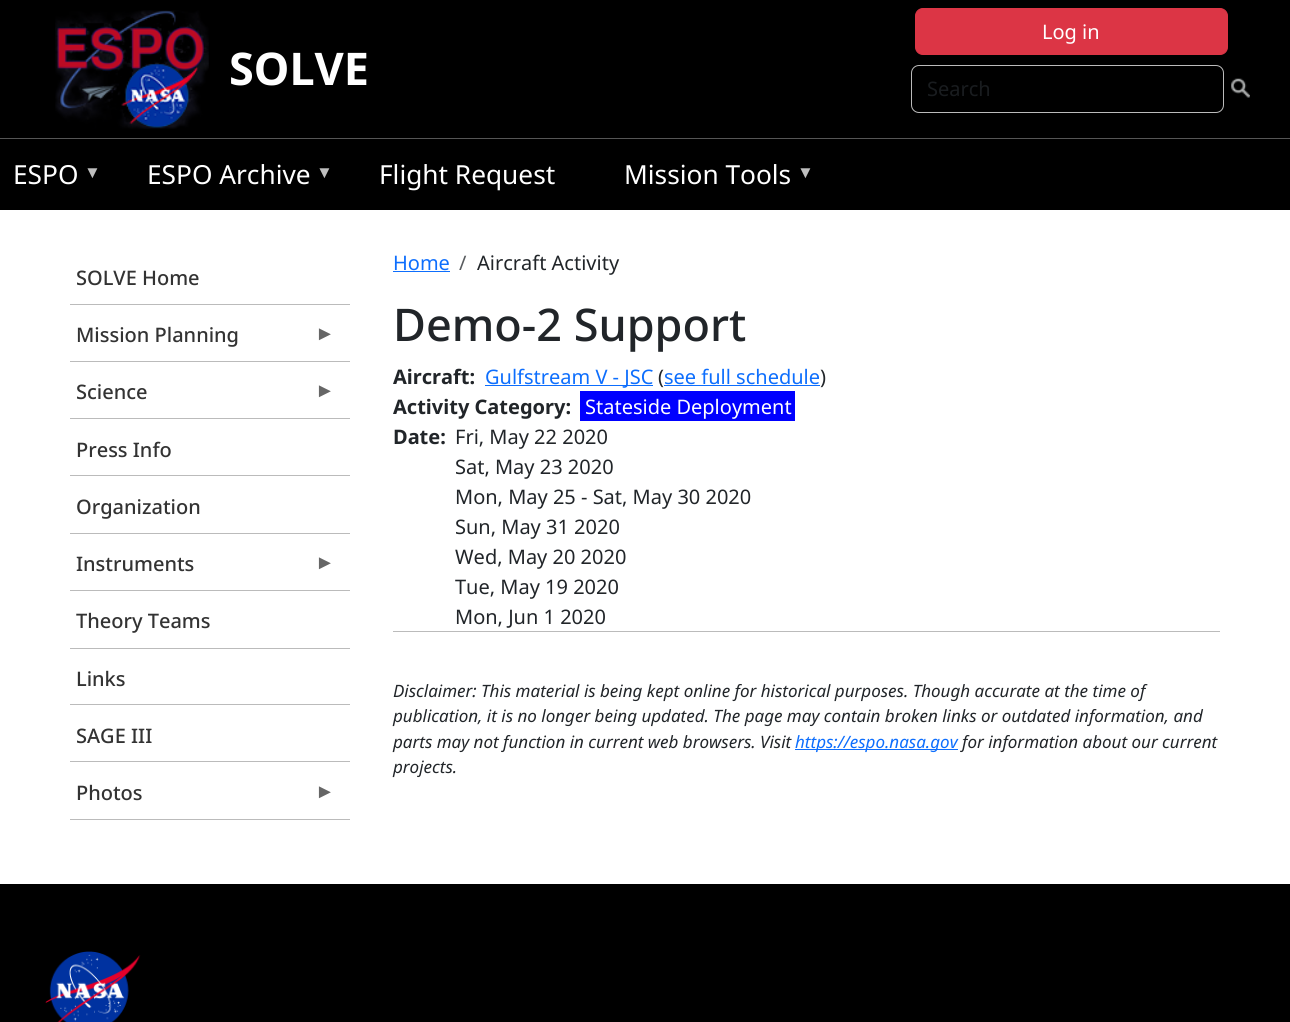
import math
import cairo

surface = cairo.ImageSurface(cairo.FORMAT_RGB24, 1290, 1022)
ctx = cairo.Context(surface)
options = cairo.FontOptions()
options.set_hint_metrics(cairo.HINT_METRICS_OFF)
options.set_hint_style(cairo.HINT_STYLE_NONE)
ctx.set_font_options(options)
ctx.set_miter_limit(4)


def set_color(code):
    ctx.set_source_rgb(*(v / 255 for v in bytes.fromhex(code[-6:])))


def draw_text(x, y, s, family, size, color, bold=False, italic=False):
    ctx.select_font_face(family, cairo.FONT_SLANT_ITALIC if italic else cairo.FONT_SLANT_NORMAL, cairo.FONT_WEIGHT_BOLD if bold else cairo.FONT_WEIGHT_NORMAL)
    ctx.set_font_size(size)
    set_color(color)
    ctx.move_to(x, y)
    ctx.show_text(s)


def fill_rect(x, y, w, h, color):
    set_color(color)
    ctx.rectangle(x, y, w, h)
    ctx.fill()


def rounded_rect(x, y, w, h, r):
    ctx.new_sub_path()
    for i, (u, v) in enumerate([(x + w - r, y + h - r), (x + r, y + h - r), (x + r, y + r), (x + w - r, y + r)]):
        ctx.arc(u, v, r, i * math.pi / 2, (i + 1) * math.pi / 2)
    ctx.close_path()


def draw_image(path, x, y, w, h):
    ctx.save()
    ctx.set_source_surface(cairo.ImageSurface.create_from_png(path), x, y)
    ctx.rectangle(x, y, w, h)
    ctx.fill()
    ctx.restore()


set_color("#ffffff")
ctx.paint()
fill_rect(0, 0, 1290, 138, "#000000")
set_color("#dc3545")
rounded_rect(915.5, 8.5, 312, 46, 7.5)
ctx.fill_preserve()
ctx.set_line_width(1)
ctx.stroke()
draw_text(1042, 39, "Log in", "Noto Sans", 20, "#ffffff")
draw_image("assets/img1.png", 55, 10, 154, 119)
draw_text(229, 85, "SOLVE", "Noto Sans", 45, "#ffffff", bold=True)
rounded_rect(911.5, 65.5, 312, 47, 7.5)
set_color("#bbbbbb")
ctx.stroke()
draw_text(927, 96, "Search", "Noto Sans", 20, "#191c1f")
draw_image("assets/img2.png", 1231, 78, 19, 20)
fill_rect(0, 139, 1290, 71, "#000000")
fill_rect(0, 138, 1290, 1, "#555555")
draw_text(13, 184, "ESPO", "Noto Sans", 26.25, "#ffffff")
draw_text(84, 178, "▼", "Liberation Sans", 17, "#bfbfbf")
draw_text(147, 184, "ESPO Archive", "Noto Sans", 26.25, "#ffffff")
draw_text(316, 178, "▼", "Liberation Sans", 17, "#bfbfbf")
draw_text(379, 184, "Flight Request", "Noto Sans", 26.25, "#ffffff")
draw_text(624, 184, "Mission Tools", "Noto Sans", 26.25, "#ffffff")
draw_text(797, 178, "▼", "Liberation Sans", 17, "#bfbfbf")
fill_rect(70, 304, 280, 1, "#bbbbbb")
draw_text(76, 285, "SOLVE Home", "Noto Sans Medium", 20, "#333333")
fill_rect(70, 361, 280, 1, "#bbbbbb")
draw_text(76, 342, "Mission Planning", "Noto Sans Medium", 20, "#333333")
draw_text(315, 340, "►", "Liberation Sans", 20, "#666666")
fill_rect(70, 418, 280, 1, "#bbbbbb")
draw_text(76, 399, "Science", "Noto Sans Medium", 20, "#333333")
draw_text(315, 397, "►", "Liberation Sans", 20, "#666666")
fill_rect(70, 475, 280, 1, "#bbbbbb")
draw_text(76, 457, "Press Info", "Noto Sans Medium", 20, "#333333")
fill_rect(70, 533, 280, 1, "#bbbbbb")
draw_text(76, 514, "Organization", "Noto Sans Medium", 20, "#333333")
fill_rect(70, 590, 280, 1, "#bbbbbb")
draw_text(76, 571, "Instruments", "Noto Sans Medium", 20, "#333333")
draw_text(315, 569, "►", "Liberation Sans", 20, "#666666")
fill_rect(70, 648, 280, 1, "#bbbbbb")
draw_text(76, 628, "Theory Teams", "Noto Sans Medium", 20, "#333333")
fill_rect(70, 704, 280, 1, "#bbbbbb")
draw_text(76, 686, "Links", "Noto Sans Medium", 20, "#333333")
fill_rect(70, 761, 280, 1, "#bbbbbb")
draw_text(76, 743, "SAGE III", "Noto Sans Medium", 20, "#333333")
fill_rect(70, 819, 280, 1, "#bbbbbb")
draw_text(76, 800, "Photos", "Noto Sans Medium", 20, "#333333")
draw_text(315, 798, "►", "Liberation Sans", 20, "#666666")
draw_text(393, 270, "Home", "Noto Sans", 20, "#0d6efd")
fill_rect(393, 271, 57, 1, "#0d6efd")
draw_text(459, 270, "/", "Noto Sans", 20, "#595c5f")
draw_text(477, 270, "Aircraft Activity", "Noto Sans", 20, "#212529")
draw_text(393, 341, "Demo-2 Support", "Noto Sans Medium", 45, "#212529")
draw_text(393, 384, "Aircraft:", "Noto Sans", 20, "#212529", bold=True)
fill_rect(485, 385, 168, 1, "#0d6efd")
draw_text(485, 384, "Gulfstream V - JSC", "Noto Sans", 20, "#0d6efd")
draw_text(658, 384, "(", "Noto Sans", 20, "#212529")
draw_text(664, 384, "see full schedule", "Noto Sans", 20, "#0d6efd")
fill_rect(664, 385, 156, 1, "#0d6efd")
draw_text(820, 384, ")", "Noto Sans", 20, "#212529")
draw_text(393, 414, "Activity Category:", "Noto Sans", 20, "#212529", bold=True)
fill_rect(580, 391, 215, 30, "#0000ff")
draw_text(585, 414, "Stateside Deployment", "Noto Sans", 20, "#ffffff")
draw_text(393, 444, "Date:", "Noto Sans", 20, "#212529", bold=True)
draw_text(455, 444, "Fri, May 22 2020", "Noto Sans", 20, "#212529")
draw_text(455, 474, "Sat, May 23 2020", "Noto Sans", 20, "#212529")
draw_text(455, 504, "Mon, May 25 - Sat, May 30 2020", "Noto Sans", 20, "#212529")
draw_text(455, 534, "Sun, May 31 2020", "Noto Sans", 20, "#212529")
draw_text(455, 564, "Wed, May 20 2020", "Noto Sans", 20, "#212529")
draw_text(455, 594, "Tue, May 19 2020", "Noto Sans", 20, "#212529")
draw_text(455, 624, "Mon, Jun 1 2020", "Noto Sans", 20, "#212529")
fill_rect(393, 631, 827, 1, "#bbbbbb")
draw_text(393, 697, "Disclaimer: This material is being kept online for historical purposes. Though accurate at the time of", "Noto Sans", 17, "#212529", italic=True)
draw_text(393, 722, "publication, it is no longer being updated. The page may contain broken links or outdated information, and", "Noto Sans", 17, "#212529", italic=True)
draw_text(393, 748, "parts may not function in current web browsers. Visit", "Noto Sans", 17, "#212529", italic=True)
fill_rect(795, 749, 163, 1, "#0d6efd")
draw_text(795, 748, "https://espo.nasa.gov", "Noto Sans", 17, "#0d6efd", italic=True)
draw_text(962, 748, "for information about our current", "Noto Sans", 17, "#212529", italic=True)
draw_text(393, 773, "projects.", "Noto Sans", 17, "#212529", italic=True)
fill_rect(0, 884, 1290, 138, "#000000")
draw_image("assets/img3.png", 45, 951, 96, 71)
surface.write_to_png("output.png")
